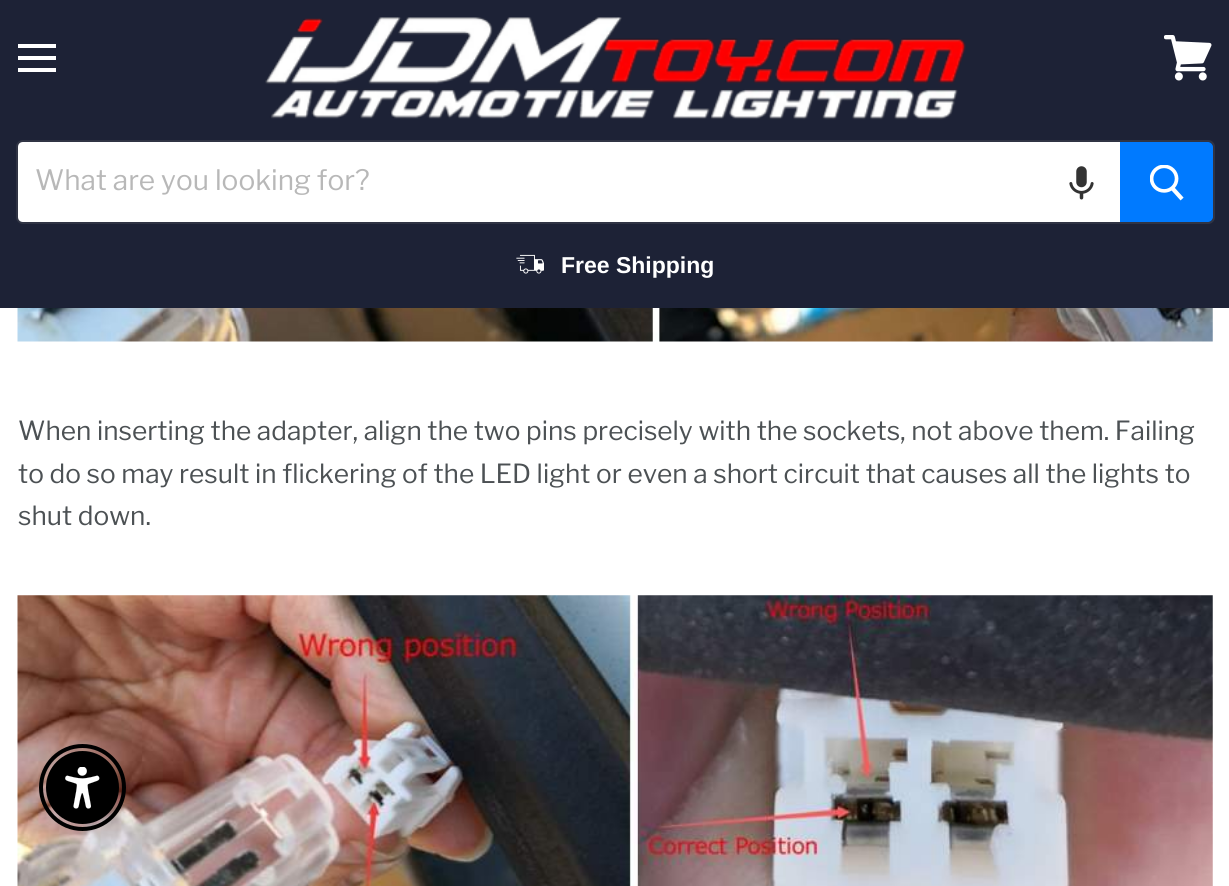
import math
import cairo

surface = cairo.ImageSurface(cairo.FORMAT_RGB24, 1229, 886)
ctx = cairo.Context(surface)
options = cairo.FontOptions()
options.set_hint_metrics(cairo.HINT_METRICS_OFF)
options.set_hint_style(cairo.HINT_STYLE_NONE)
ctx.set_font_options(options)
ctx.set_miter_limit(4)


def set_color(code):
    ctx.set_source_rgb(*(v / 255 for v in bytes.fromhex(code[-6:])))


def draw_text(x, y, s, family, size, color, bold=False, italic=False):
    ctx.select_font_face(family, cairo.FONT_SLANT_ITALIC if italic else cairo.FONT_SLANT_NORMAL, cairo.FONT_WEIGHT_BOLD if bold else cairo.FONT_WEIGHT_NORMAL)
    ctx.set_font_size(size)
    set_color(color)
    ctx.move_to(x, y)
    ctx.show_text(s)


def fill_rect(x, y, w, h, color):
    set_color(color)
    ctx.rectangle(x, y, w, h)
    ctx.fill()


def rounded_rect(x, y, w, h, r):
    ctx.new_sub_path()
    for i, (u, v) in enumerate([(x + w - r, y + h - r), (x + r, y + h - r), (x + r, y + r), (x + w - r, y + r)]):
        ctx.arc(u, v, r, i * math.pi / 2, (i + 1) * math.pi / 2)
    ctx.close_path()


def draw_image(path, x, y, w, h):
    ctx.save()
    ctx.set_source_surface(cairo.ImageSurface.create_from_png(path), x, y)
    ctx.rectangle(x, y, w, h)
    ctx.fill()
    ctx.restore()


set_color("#ffffff")
ctx.paint()
fill_rect(0, 0, 1229, 308, "#1d2236")
fill_rect(18, 44, 38, 4, "#ffffff")
fill_rect(18, 56, 38, 4, "#ffffff")
fill_rect(18, 68, 38, 4, "#ffffff")
draw_image("assets/img1.png", 1164, 35, 48, 46)
draw_image("assets/img2.png", 265, 17, 701, 103)
rounded_rect(17, 141, 1197, 82, 6)
ctx.set_source_rgba(0.498, 0.498, 0.498, 0.2)
ctx.stroke()
set_color("#ffffff")
ctx.new_path()
ctx.move_to(23, 142)
ctx.line_to(1120, 142)
ctx.line_to(1120, 222)
ctx.line_to(23, 222)
ctx.curve_to(20, 222, 18, 220, 18, 217)
ctx.line_to(18, 147)
ctx.curve_to(18, 144, 20, 142, 23, 142)
ctx.close_path()
ctx.fill()
draw_text(35, 190, "What are you looking for?", "Libre Franklin", 28, "#b8b8b8")
draw_image("assets/img3.png", 1069, 166, 25, 34)
set_color("#007aff")
ctx.new_path()
ctx.move_to(1121, 143)
ctx.line_to(1208, 143)
ctx.curve_to(1210, 143, 1212, 145, 1212, 147)
ctx.line_to(1212, 217)
ctx.curve_to(1212, 219, 1210, 221, 1208, 221)
ctx.line_to(1121, 221)
ctx.close_path()
ctx.fill_preserve()
ctx.stroke()
draw_image("assets/img4.png", 1150, 165, 34, 36)
draw_image("assets/img5.png", 516, 254, 28, 20)
draw_text(561, 273, "Free Shipping", "Arimo", 23, "#ffffff", bold=True)
draw_image("assets/img6.png", 17, 308, 1196, 34)
draw_text(18, 440, "When inserting the adapter, align the two pins precisely with the sockets, not above them. Failing", "Libre Franklin", 26.25, "#4c5154")
draw_text(18, 483, "to do so may result in flickering of the LED light or even a short circuit that causes all the lights to", "Libre Franklin", 26.25, "#4c5154")
draw_text(18, 525, "shut down.", "Libre Franklin", 26.25, "#4c5154")
draw_image("assets/img7.png", 17, 595, 1196, 291)
ctx.arc(82.5, 787.5, 41.5, 0, 2 * math.pi)
set_color("#000000")
ctx.set_line_width(4)
ctx.stroke()
ctx.arc(82.5, 787.5, 35.5, 0, 2 * math.pi)
ctx.fill_preserve()
ctx.set_line_width(2)
ctx.stroke()
draw_image("assets/img8.png", 65, 767, 35, 42)
surface.write_to_png("output.png")
